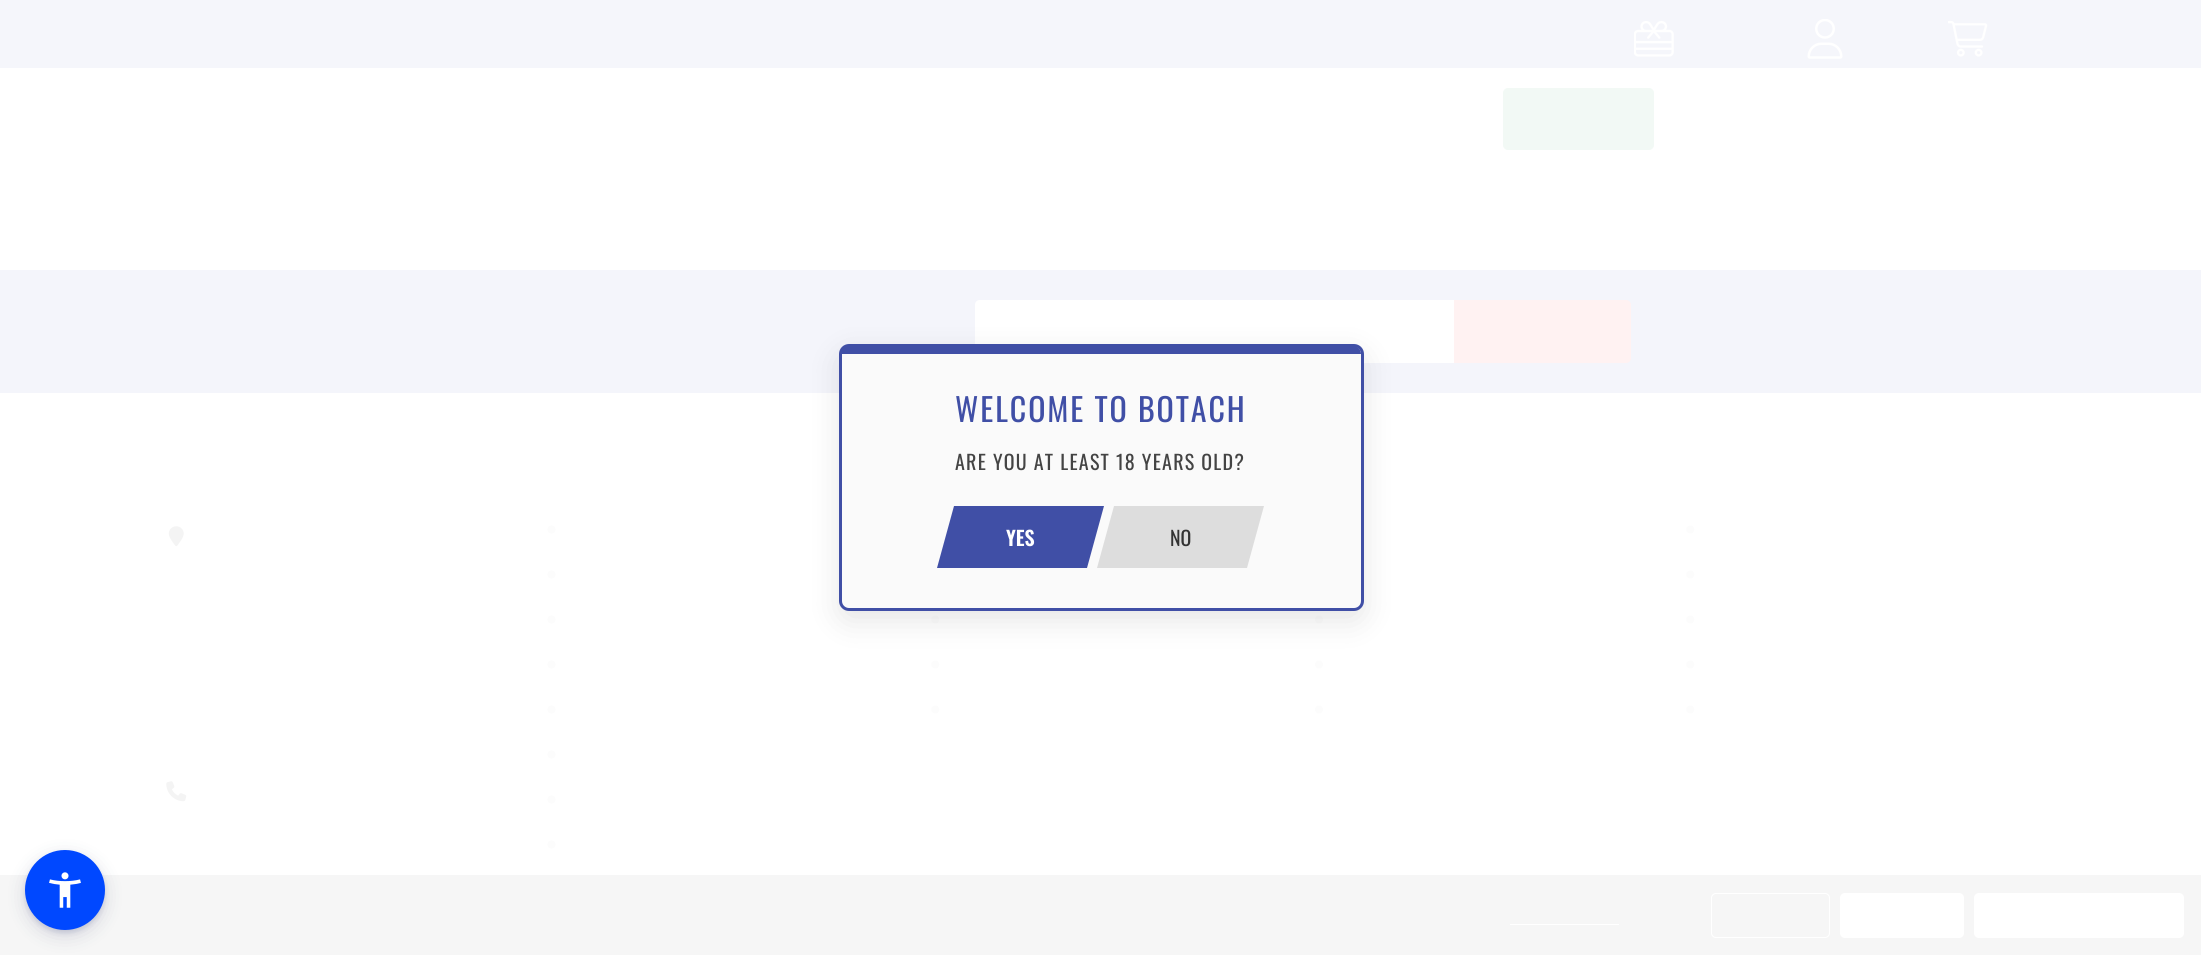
import math
import cairo

surface = cairo.ImageSurface(cairo.FORMAT_RGB24, 2201, 955)
ctx = cairo.Context(surface)
options = cairo.FontOptions()
options.set_hint_metrics(cairo.HINT_METRICS_OFF)
options.set_hint_style(cairo.HINT_STYLE_NONE)
ctx.set_font_options(options)
ctx.set_miter_limit(4)


def set_color(code):
    ctx.set_source_rgb(*(v / 255 for v in bytes.fromhex(code[-6:])))


def draw_text(x, y, s, family, size, color, bold=False, italic=False):
    ctx.select_font_face(family, cairo.FONT_SLANT_ITALIC if italic else cairo.FONT_SLANT_NORMAL, cairo.FONT_WEIGHT_BOLD if bold else cairo.FONT_WEIGHT_NORMAL)
    ctx.set_font_size(size)
    set_color(color)
    ctx.move_to(x, y)
    ctx.show_text(s)


def draw_spaced(x, y, s, letter, word):
    ctx.move_to(x, y)
    for ch in s:
        ctx.show_text(ch)
        ctx.rel_move_to(letter + word * (ch == ' '), 0)


def fill_rect(x, y, w, h, color):
    set_color(color)
    ctx.rectangle(x, y, w, h)
    ctx.fill()


def rounded_rect(x, y, w, h, r):
    ctx.new_sub_path()
    for i, (u, v) in enumerate([(x + w - r, y + h - r), (x + r, y + h - r), (x + r, y + r), (x + w - r, y + r)]):
        ctx.arc(u, v, r, i * math.pi / 2, (i + 1) * math.pi / 2)
    ctx.close_path()


def draw_shadow(x, y, w, h, r, blur, alpha):
    ctx.push_group_with_content(cairo.CONTENT_ALPHA)
    ctx.set_operator(cairo.OPERATOR_SOURCE)
    for i in range(15, -16, -2):
        e = blur * i / 6
        if min(w, h) + 2 * e > 0:
            ctx.set_source_rgba(0, 0, 0, alpha * math.erfc((i - 1) / 8.5) / 2)
            rounded_rect(x - e, y - e, w + 2 * e, h + 2 * e, max(0, min(r + e + blur * .6, min(w, h) / 2 + e)))
            ctx.fill()
    ctx.mask(ctx.pop_group())


def draw_image(path, x, y, w, h):
    ctx.save()
    ctx.set_source_surface(cairo.ImageSurface.create_from_png(path), x, y)
    ctx.rectangle(x, y, w, h)
    ctx.fill()
    ctx.restore()


set_color("#ffffff")
ctx.paint()
fill_rect(0, 0, 2201, 68, "#f5f6fb")
draw_image("assets/img1.png", 1634, 20, 40, 37)
draw_image("assets/img2.png", 1807, 19, 36, 40)
draw_image("assets/img3.png", 1948, 20, 40, 37)
set_color("#f2f9f5")
rounded_rect(1503.5, 88.5, 150, 61, 4.5)
ctx.fill_preserve()
ctx.set_line_width(1)
ctx.stroke()
fill_rect(0, 270, 2201, 123, "#f4f5fb")
set_color("#ffffff")
ctx.new_path()
ctx.move_to(980, 300)
ctx.line_to(1454, 300)
ctx.line_to(1454, 363)
ctx.line_to(980, 363)
ctx.curve_to(977, 363, 975, 361, 975, 358)
ctx.line_to(975, 305)
ctx.curve_to(975, 302, 977, 300, 980, 300)
ctx.close_path()
ctx.fill()
set_color("#fff2f2")
ctx.new_path()
ctx.move_to(1454.5, 300.5)
ctx.line_to(1626, 300.5)
ctx.curve_to(1628.5, 300.5, 1630.5, 302.5, 1630.5, 305)
ctx.line_to(1630.5, 358)
ctx.curve_to(1630.5, 360.5, 1628.5, 362.5, 1626, 362.5)
ctx.line_to(1454.5, 362.5)
ctx.close_path()
ctx.fill_preserve()
ctx.stroke()
draw_image("assets/img4.png", 168, 526, 16, 21)
draw_image("assets/img5.png", 166, 781, 21, 21)
draw_image("assets/img6.png", 547, 525, 9, 9)
draw_image("assets/img6.png", 547, 570, 9, 9)
draw_image("assets/img6.png", 547, 615, 9, 9)
draw_image("assets/img6.png", 547, 660, 9, 9)
draw_image("assets/img6.png", 547, 705, 9, 9)
draw_image("assets/img6.png", 547, 750, 9, 9)
draw_image("assets/img6.png", 547, 795, 9, 9)
draw_image("assets/img6.png", 547, 840, 9, 9)
draw_image("assets/img7.png", 931, 615, 9, 9)
draw_image("assets/img7.png", 931, 660, 9, 9)
draw_image("assets/img7.png", 931, 705, 9, 9)
draw_image("assets/img7.png", 1686, 525, 9, 9)
draw_image("assets/img7.png", 1686, 570, 9, 9)
draw_image("assets/img8.png", 1315, 615, 8, 9)
draw_image("assets/img7.png", 1686, 615, 9, 9)
draw_image("assets/img8.png", 1315, 660, 8, 9)
draw_image("assets/img7.png", 1686, 660, 9, 9)
draw_image("assets/img8.png", 1315, 705, 8, 9)
draw_image("assets/img7.png", 1686, 705, 9, 9)
set_color("#000000")
draw_shadow(839, 354, 525, 267, 10, 15, 0.1)
set_color("#fafafa")
rounded_rect(840.5, 345.5, 522, 264, 8.5)
ctx.fill_preserve()
set_color("#404fa6")
ctx.set_line_width(3)
ctx.stroke()
ctx.new_path()
ctx.move_to(849, 346)
ctx.line_to(1353, 346)
ctx.curve_to(1357.5, 346, 1361, 349.5, 1361, 354)
ctx.line_to(841, 354)
ctx.curve_to(841, 349.5, 844.5, 346, 849, 346)
ctx.close_path()
ctx.fill()
ctx.select_font_face("Oswald")
ctx.set_font_size(32)
draw_spaced(955, 422, "WELCOME TO BOTACH", 1.9, 0)
ctx.set_font_size(20)
set_color("#444444")
draw_spaced(955, 470, "ARE YOU AT LEAST 18 YEARS OLD?", 1.25, 0)
set_color("#404fa6")
ctx.new_path()
ctx.move_to(954, 506)
ctx.line_to(1104, 506)
ctx.line_to(1087, 568)
ctx.line_to(937, 568)
ctx.close_path()
ctx.fill()
draw_text(1006, 546, "YES", "Oswald SemiBold", 20, "#ffffff")
set_color("#dddddd")
ctx.new_path()
ctx.move_to(1114, 506)
ctx.line_to(1264, 506)
ctx.line_to(1247, 568)
ctx.line_to(1097, 568)
ctx.close_path()
ctx.fill()
draw_text(1170, 546, "NO", "Oswald", 20, "#333333")
fill_rect(0, 875, 2201, 80, "#f6f6f6")
set_color("#5d6494")
draw_shadow(25, 853, 80, 80, 40, 2.5, 0.2)
set_color("#252c61")
draw_shadow(25, 856, 80, 80, 40, 9.5, 0.15)
set_color("#0048ff")
ctx.arc(65, 890, 40, 0, 2 * math.pi)
ctx.fill()
draw_image("assets/img9.png", 49, 872, 32, 36)
fill_rect(1510, 924, 109, 1, "#ffffff")
rounded_rect(1711.5, 893.5, 118, 44, 4.5)
ctx.set_line_width(1)
ctx.stroke()
rounded_rect(1840, 893, 124, 45, 5)
ctx.fill()
rounded_rect(1974, 893, 210, 45, 5)
ctx.fill()
surface.write_to_png("output.png")
